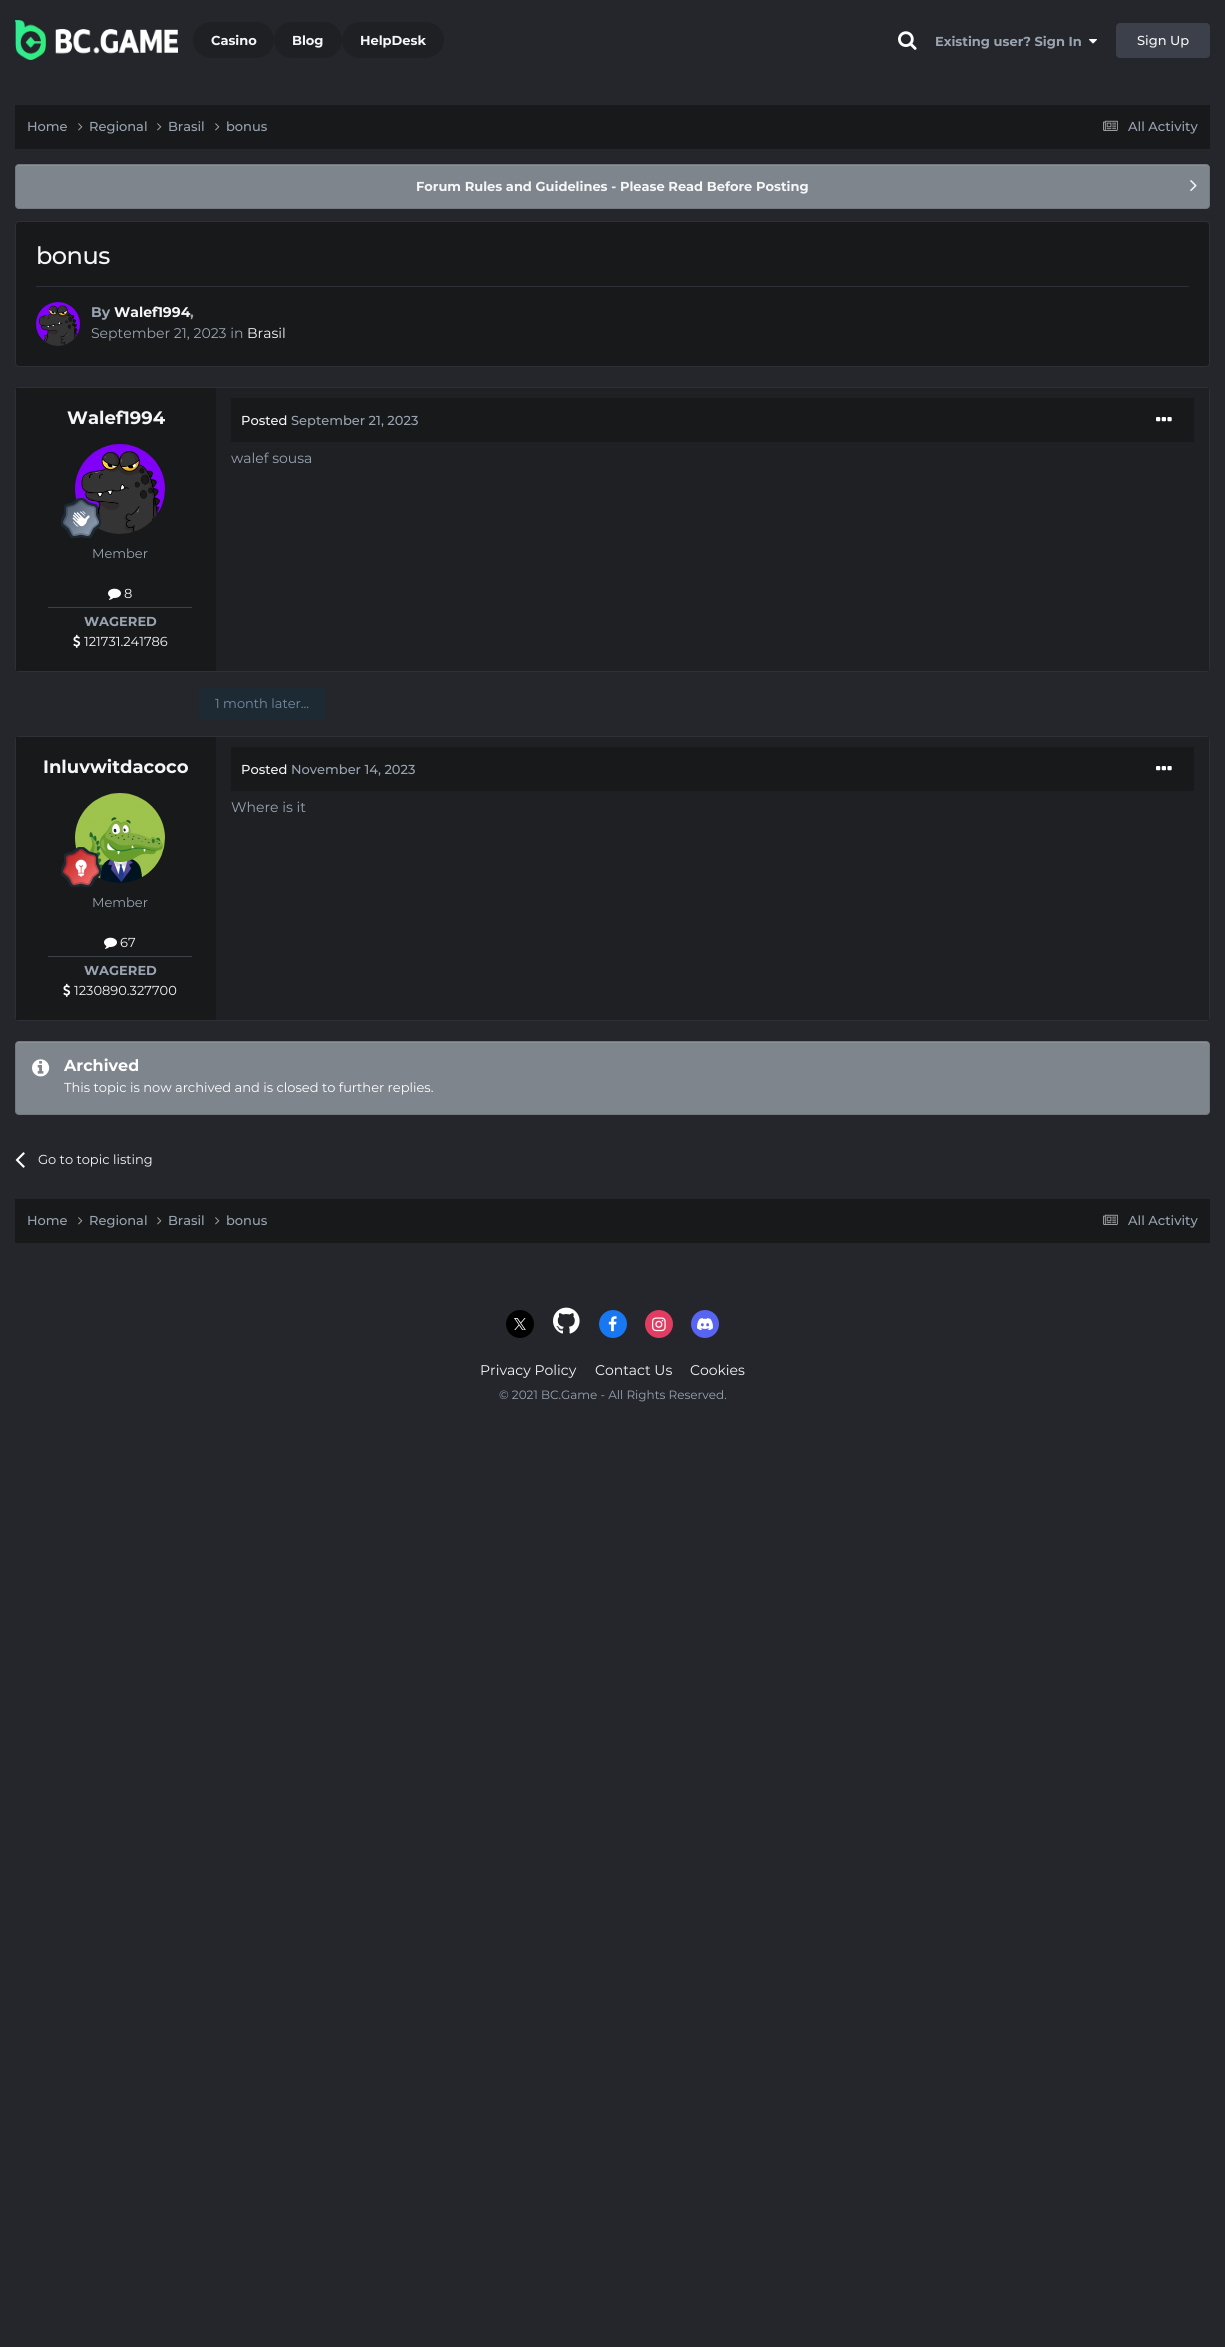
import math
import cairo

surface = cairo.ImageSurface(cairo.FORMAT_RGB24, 1225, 2347)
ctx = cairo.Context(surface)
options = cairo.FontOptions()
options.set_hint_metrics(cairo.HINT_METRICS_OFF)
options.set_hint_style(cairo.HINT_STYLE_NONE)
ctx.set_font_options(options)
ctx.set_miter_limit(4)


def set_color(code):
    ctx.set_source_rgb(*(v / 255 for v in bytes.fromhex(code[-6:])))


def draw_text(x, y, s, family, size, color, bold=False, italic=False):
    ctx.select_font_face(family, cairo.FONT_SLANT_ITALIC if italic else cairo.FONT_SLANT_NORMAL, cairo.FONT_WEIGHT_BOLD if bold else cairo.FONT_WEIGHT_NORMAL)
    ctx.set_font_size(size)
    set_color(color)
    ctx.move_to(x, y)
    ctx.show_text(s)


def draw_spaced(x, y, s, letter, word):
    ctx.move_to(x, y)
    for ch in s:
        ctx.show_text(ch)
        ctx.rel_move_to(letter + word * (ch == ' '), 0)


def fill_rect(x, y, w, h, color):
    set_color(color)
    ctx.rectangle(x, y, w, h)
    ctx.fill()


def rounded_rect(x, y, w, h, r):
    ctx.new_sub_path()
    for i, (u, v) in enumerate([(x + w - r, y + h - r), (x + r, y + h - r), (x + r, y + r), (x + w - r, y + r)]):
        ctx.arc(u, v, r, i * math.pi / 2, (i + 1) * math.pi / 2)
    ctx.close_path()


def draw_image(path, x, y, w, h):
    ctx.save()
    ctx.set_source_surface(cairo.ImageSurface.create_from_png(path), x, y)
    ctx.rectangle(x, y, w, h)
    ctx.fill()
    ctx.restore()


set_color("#24262b")
ctx.paint()
draw_image("assets/img1.png", 15, 20, 163, 40)
set_color("#1e2024")
rounded_rect(193, 22, 81, 36, 18)
ctx.fill()
draw_text(211, 45, "Casino", "Montserrat", 13, "#f5f6f7", bold=True)
set_color("#1e2024")
rounded_rect(274, 22, 68, 36, 18)
ctx.fill()
draw_text(292, 45, "Blog", "Montserrat", 13, "#f5f6f7", bold=True)
set_color("#1e2024")
rounded_rect(342, 22, 102, 36, 18)
ctx.fill()
draw_text(360, 45, "HelpDesk", "Montserrat", 13, "#f5f6f7", bold=True)
draw_image("assets/img2.png", 898, 31, 19, 19)
draw_text(935, 46, "Existing user? Sign In", "Montserrat", 13, "#99a4b0", bold=True)
draw_image("assets/img3.png", 1089, 39, 8, 5)
set_color("#3c404a")
rounded_rect(1116, 23, 94, 35, 4)
ctx.fill()
draw_text(1137, 45, "Sign Up", "Montserrat Medium", 13, "#f5f6f7")
fill_rect(15, 105, 1195, 44, "#17191b")
draw_text(27, 131, "Home", "Montserrat Medium", 13, "#99a4b0")
draw_image("assets/img4.png", 78, 123, 5, 8)
draw_text(89, 131, "Regional", "Montserrat Medium", 13, "#99a4b0")
draw_image("assets/img4.png", 157, 123, 5, 8)
draw_text(168, 131, "Brasil", "Montserrat Medium", 13, "#99a4b0")
draw_image("assets/img4.png", 215, 123, 5, 8)
draw_text(226, 131, "bonus", "Montserrat Medium", 13, "#99a4b0")
draw_image("assets/img5.png", 1103, 120, 15, 11)
draw_text(1128, 131, "All Activity", "Montserrat Medium", 13, "#99a4b0")
set_color("#7f858d")
rounded_rect(15, 164, 1195, 45, 4)
ctx.fill()
set_color("#8c9198")
ctx.new_path()
ctx.move_to(19, 166)
ctx.line_to(1206, 166)
ctx.curve_to(1208, 166, 1209, 167, 1209, 169)
ctx.line_to(1209, 168)
ctx.curve_to(1209, 166, 1208, 165, 1206, 165)
ctx.line_to(19, 165)
ctx.curve_to(17, 165, 16, 166, 16, 168)
ctx.line_to(16, 169)
ctx.curve_to(16, 167, 17, 166, 19, 166)
ctx.close_path()
ctx.fill()
rounded_rect(15.5, 164.5, 1194, 44, 3.5)
ctx.set_source_rgba(0, 0, 0, 0.1)
ctx.set_line_width(1)
ctx.stroke()
draw_text(416, 191, "Forum Rules and Guidelines - Please Read Before Posting", "Montserrat", 13, "#f5f6f7", bold=True)
draw_image("assets/img6.png", 1190, 180, 7, 11)
set_color("#17191b")
rounded_rect(15.5, 221.5, 1194, 145, 3.5)
ctx.fill_preserve()
set_color("#2d3035")
ctx.stroke()
ctx.select_font_face("Montserrat Medium")
ctx.set_font_size(24)
set_color("#f5f6f7")
draw_spaced(36, 264, "bonus", -0.5, 0)
fill_rect(36, 286, 1153, 1, "#2d3037")
draw_image("assets/img7.png", 36, 302, 44, 44)
draw_text(91, 317, "By", "Montserrat", 14, "#99a4b0", bold=True)
draw_text(114, 317, "Walef1994", "Montserrat", 14, "#f5f6f7", bold=True)
draw_text(190, 317, ",", "Montserrat", 14, "#99a4b0", bold=True)
draw_text(91, 338, "September 21, 2023 in", "Montserrat", 14, "#99a4b0")
draw_text(247, 338, "Brasil", "Montserrat", 14, "#f5f6f7")
rounded_rect(15.5, 387.5, 1194, 284, 3.5)
set_color("#2d3035")
ctx.stroke()
fill_rect(16, 388, 200, 283, "#17191b")
draw_text(67, 424, "Walef1994", "Montserrat", 18, "#f5f6f7", bold=True)
draw_image("assets/img8.png", 75, 444, 90, 90)
draw_image("assets/img9.png", 61, 498, 40, 40)
draw_text(92, 558, "Member", "Montserrat", 13, "#99a4b0")
draw_image("assets/img10.png", 108, 588, 13, 12)
draw_text(124, 598, "8", "Montserrat", 13, "#f5f6f7")
fill_rect(48, 607, 144, 1, "#3c404a")
draw_text(84, 626, "WAGERED", "Montserrat", 13, "#99a4b0", bold=True)
draw_image("assets/img11.png", 73, 634, 8, 14)
draw_text(84, 646, "121731.241786", "Montserrat", 13, "#f5f6f7")
fill_rect(216, 388, 993, 283, "#1e2024")
fill_rect(231, 398, 963, 44, "#17191b")
draw_text(241, 425, "Posted", "Montserrat Medium", 13, "#f5f6f7")
draw_text(291, 425, "September 21, 2023", "Montserrat Medium", 13, "#99a4b0")
draw_image("assets/img12.png", 1156, 417, 16, 5)
draw_text(231, 463, "walef sousa", "Montserrat", 14, "#99a4b0")
set_color("#1d2a34")
rounded_rect(199, 688, 126, 32, 4)
ctx.fill()
draw_text(215, 708, "1 month later...", "Montserrat", 13, "#748da2")
rounded_rect(15.5, 736.5, 1194, 284, 3.5)
set_color("#2d3035")
ctx.stroke()
fill_rect(16, 737, 200, 283, "#17191b")
draw_text(43, 773, "Inluvwitdacoco", "Montserrat", 18, "#f5f6f7", bold=True)
draw_image("assets/img13.png", 75, 793, 90, 90)
draw_image("assets/img14.png", 61, 847, 40, 40)
draw_text(92, 907, "Member", "Montserrat", 13, "#99a4b0")
draw_image("assets/img10.png", 104, 937, 13, 12)
draw_text(120, 947, "67", "Montserrat", 13, "#f5f6f7")
fill_rect(48, 956, 144, 1, "#3c404a")
draw_text(84, 975, "WAGERED", "Montserrat", 13, "#99a4b0", bold=True)
draw_image("assets/img11.png", 63, 983, 8, 14)
draw_text(74, 995, "1230890.327700", "Montserrat", 13, "#f5f6f7")
fill_rect(216, 737, 993, 283, "#1e2024")
fill_rect(231, 747, 963, 44, "#17191b")
draw_text(241, 774, "Posted", "Montserrat Medium", 13, "#f5f6f7")
draw_text(291, 774, "November 14, 2023", "Montserrat Medium", 13, "#99a4b0")
draw_image("assets/img12.png", 1156, 766, 16, 5)
draw_text(231, 812, "Where is it", "Montserrat", 14, "#99a4b0")
set_color("#7f858d")
rounded_rect(15, 1041, 1195, 74, 4)
ctx.fill()
set_color("#8c9198")
ctx.new_path()
ctx.move_to(19, 1043)
ctx.line_to(1206, 1043)
ctx.curve_to(1208, 1043, 1209, 1044, 1209, 1046)
ctx.line_to(1209, 1045)
ctx.curve_to(1209, 1043, 1208, 1042, 1206, 1042)
ctx.line_to(19, 1042)
ctx.curve_to(17, 1042, 16, 1043, 16, 1045)
ctx.line_to(16, 1046)
ctx.curve_to(16, 1044, 17, 1043, 19, 1043)
ctx.close_path()
ctx.fill()
rounded_rect(15.5, 1041.5, 1194, 73, 3.5)
ctx.set_source_rgba(0, 0, 0, 0.1)
ctx.stroke()
draw_image("assets/img15.png", 32, 1059, 18, 18)
draw_text(64, 1071, "Archived", "Montserrat", 16, "#ffffff", bold=True)
draw_text(64, 1092, "This topic is now archived and is closed to further replies.", "Montserrat", 13, "#ffffff")
draw_image("assets/img16.png", 15, 1152, 10, 16)
draw_text(38, 1164, "Go to topic listing", "Montserrat", 13, "#f5f6f7")
fill_rect(15, 1199, 1195, 44, "#17191b")
draw_text(27, 1225, "Home", "Montserrat Medium", 13, "#99a4b0")
draw_image("assets/img4.png", 78, 1217, 5, 8)
draw_text(89, 1225, "Regional", "Montserrat Medium", 13, "#99a4b0")
draw_image("assets/img4.png", 157, 1217, 5, 8)
draw_text(168, 1225, "Brasil", "Montserrat Medium", 13, "#99a4b0")
draw_image("assets/img4.png", 215, 1217, 5, 8)
draw_text(226, 1225, "bonus", "Montserrat Medium", 13, "#99a4b0")
draw_image("assets/img5.png", 1103, 1214, 15, 11)
draw_text(1128, 1225, "All Activity", "Montserrat Medium", 13, "#99a4b0")
set_color("#000000")
ctx.new_path()
ctx.arc(520, 1324, 14, 0, 2 * math.pi)
ctx.fill()
draw_image("assets/img17.png", 514, 1318, 12, 12)
draw_image("assets/img18.png", 553, 1307, 27, 27)
set_color("#1778f2")
ctx.arc(613, 1324, 14, 0, 2 * math.pi)
ctx.fill()
draw_image("assets/img19.png", 608, 1316, 9, 16)
set_color("#e13d62")
ctx.arc(659, 1324, 14, 0, 2 * math.pi)
ctx.fill()
draw_image("assets/img20.png", 652, 1317, 14, 15)
set_color("#5865f2")
ctx.arc(705, 1324, 14, 0, 2 * math.pi)
ctx.fill()
draw_image("assets/img21.png", 697, 1318, 16, 12)
draw_text(480, 1375, "Privacy Policy", "Montserrat", 14, "#f5f6f7")
draw_text(595, 1375, "Contact Us", "Montserrat", 14, "#f5f6f7")
draw_text(690, 1375, "Cookies", "Montserrat", 14, "#f5f6f7")
draw_text(499, 1399, "© 2021 BC.Game - All Rights Reserved.", "Montserrat", 12, "#99a4b0")
surface.write_to_png("output.png")
